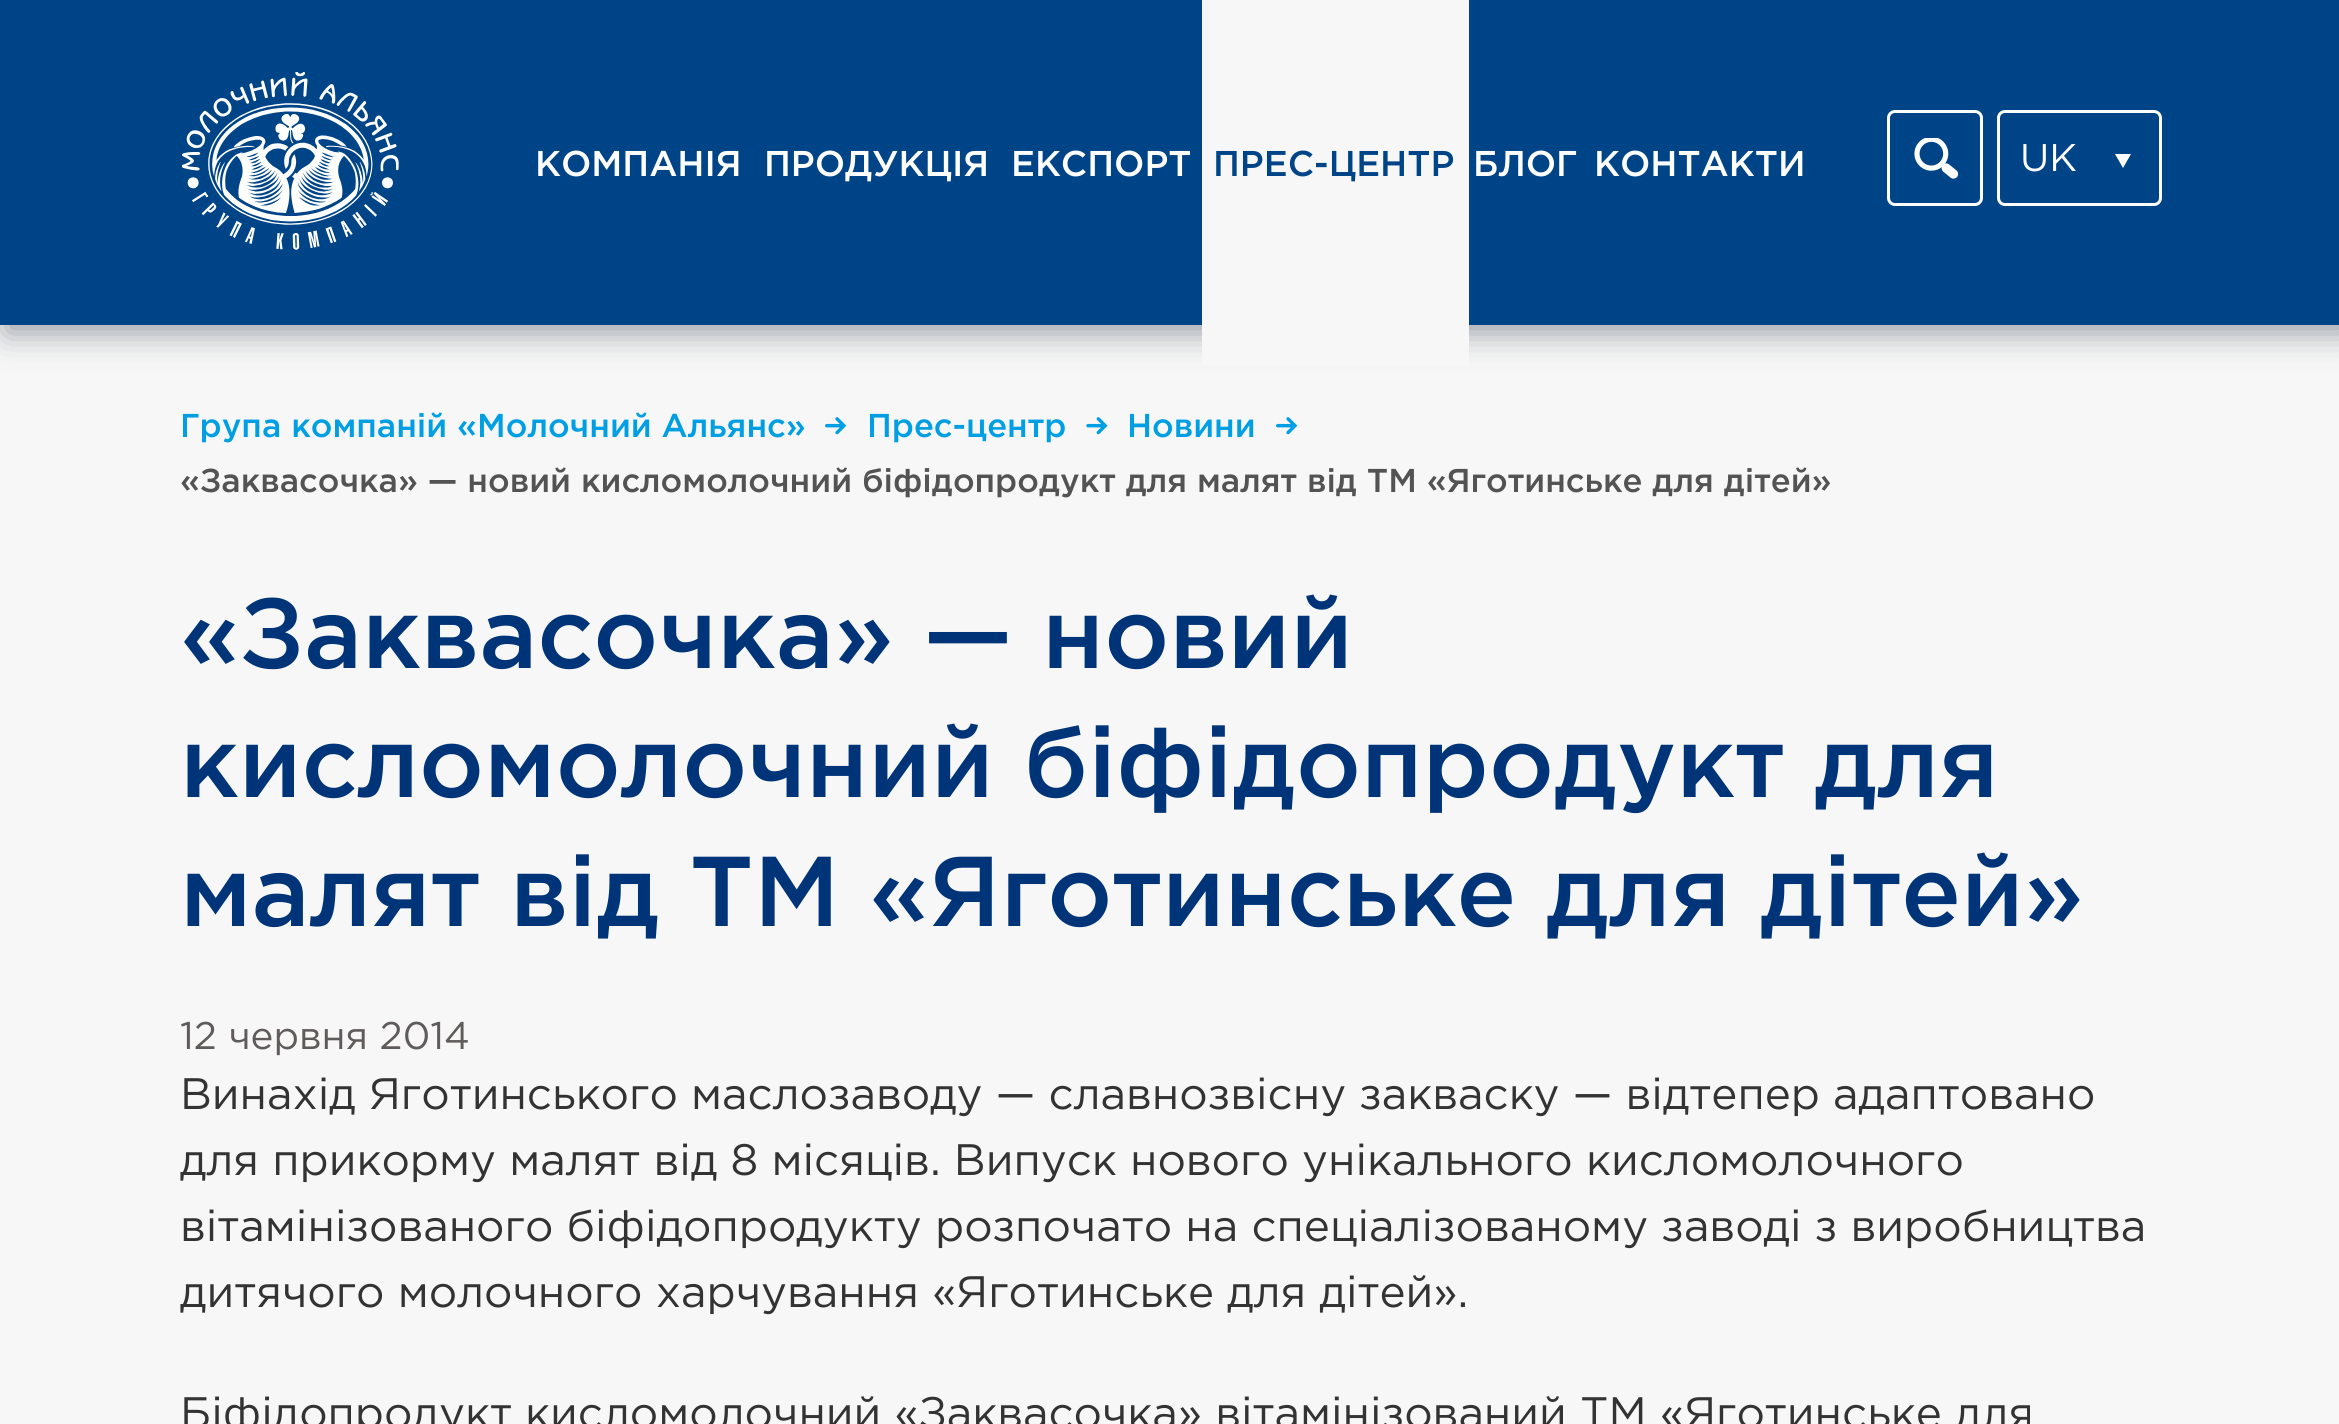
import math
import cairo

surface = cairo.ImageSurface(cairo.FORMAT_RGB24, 2339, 1424)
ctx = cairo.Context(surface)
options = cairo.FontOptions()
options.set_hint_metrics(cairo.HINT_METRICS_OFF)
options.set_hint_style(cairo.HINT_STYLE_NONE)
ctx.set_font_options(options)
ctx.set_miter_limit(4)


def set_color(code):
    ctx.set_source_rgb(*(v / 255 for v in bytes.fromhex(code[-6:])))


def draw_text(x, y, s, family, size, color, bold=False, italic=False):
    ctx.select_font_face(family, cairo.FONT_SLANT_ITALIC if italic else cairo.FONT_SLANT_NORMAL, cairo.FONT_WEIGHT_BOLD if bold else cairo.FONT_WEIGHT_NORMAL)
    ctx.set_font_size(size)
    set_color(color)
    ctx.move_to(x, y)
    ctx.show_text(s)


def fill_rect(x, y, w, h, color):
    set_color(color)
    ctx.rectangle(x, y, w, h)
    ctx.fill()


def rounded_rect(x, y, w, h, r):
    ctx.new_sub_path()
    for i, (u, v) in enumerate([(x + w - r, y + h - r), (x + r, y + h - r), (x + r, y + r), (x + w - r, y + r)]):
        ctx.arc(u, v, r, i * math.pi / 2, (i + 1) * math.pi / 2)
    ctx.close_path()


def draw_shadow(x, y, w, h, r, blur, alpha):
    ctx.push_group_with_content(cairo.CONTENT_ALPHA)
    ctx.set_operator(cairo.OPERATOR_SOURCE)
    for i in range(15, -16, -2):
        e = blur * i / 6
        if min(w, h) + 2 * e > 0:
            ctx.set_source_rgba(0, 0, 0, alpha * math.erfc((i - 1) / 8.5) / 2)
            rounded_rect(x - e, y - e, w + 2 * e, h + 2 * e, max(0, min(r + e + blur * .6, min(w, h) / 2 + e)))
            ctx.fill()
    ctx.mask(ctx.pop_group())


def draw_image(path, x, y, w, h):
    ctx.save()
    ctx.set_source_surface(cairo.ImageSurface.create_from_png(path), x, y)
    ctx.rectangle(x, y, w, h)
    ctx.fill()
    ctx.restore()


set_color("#f7f7f7")
ctx.paint()
set_color("#051428")
draw_shadow(6, 8, 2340, 325, 0, 16.5, 0.4)
fill_rect(0, 0, 2339, 325, "#004488")
draw_image("assets/img1.png", 182, 72, 217, 178)
draw_text(535, 176, "КОМПАНІЯ", "Gotham Medium", 35.75, "#ffffff")
draw_text(764, 176, "ПРОДУКЦІЯ", "Gotham Medium", 35.75, "#ffffff")
draw_text(1011, 176, "ЕКСПОРТ", "Gotham Medium", 35.75, "#ffffff")
fill_rect(1202, 0, 267, 365, "#f7f7f7")
draw_text(1213, 176, "ПРЕС-ЦЕНТР", "Gotham Medium", 35.75, "#004488")
draw_text(1473, 176, "БЛОГ", "Gotham Medium", 35.75, "#ffffff")
draw_text(1594, 176, "КОНТАКТИ", "Gotham Medium", 35.75, "#ffffff")
draw_image("assets/img2.png", 1914, 138, 44, 41)
rounded_rect(1888.5, 111.5, 93, 93, 6.5)
ctx.set_line_width(3)
ctx.stroke()
rounded_rect(1998.5, 111.5, 162, 93, 6.5)
ctx.stroke()
draw_text(2020, 171, "UK", "Gotham", 38.5, "#ffffff")
ctx.new_path()
ctx.move_to(2115, 154)
ctx.line_to(2131, 154)
ctx.line_to(2123, 168)
ctx.close_path()
ctx.fill()
draw_text(180, 437, "Група компаній «Молочний Альянс»", "Gotham Medium", 33, "#009fe3")
draw_image("assets/img3.png", 825, 417, 22, 18)
draw_text(867, 437, "Прес-центр", "Gotham Medium", 33, "#009fe3")
draw_image("assets/img4.png", 1086, 417, 22, 18)
draw_text(1127, 437, "Новини", "Gotham Medium", 33, "#009fe3")
draw_image("assets/img3.png", 1276, 417, 22, 18)
draw_text(180, 492, "«Заквасочка» — новий кисломолочний біфідопродукт для малят від ТМ «Яготинське для дітей»", "Gotham Medium", 33, "#535353")
draw_text(180, 668, "«Заквасочка» — новий", "Gotham Medium", 99, "#003479")
draw_text(180, 797, "кисломолочний біфідопродукт для", "Gotham Medium", 99, "#003479")
draw_text(180, 926, "малят від ТМ «Яготинське для дітей»", "Gotham Medium", 99, "#003479")
draw_text(180, 1049, "12 червня 2014", "Gotham", 38.5, "#605b5b")
draw_text(180, 1109, "Винахід Яготинського маслозаводу — славнозвісну закваску — відтепер адаптовано", "Gotham", 44, "#333333")
draw_text(180, 1175, "для прикорму малят від 8 місяців. Випуск нового унікального кисломолочного", "Gotham", 44, "#333333")
draw_text(180, 1241, "вітамінізованого біфідопродукту розпочато на спеціалізованому заводі з виробництва", "Gotham", 44, "#333333")
draw_text(180, 1307, "дитячого молочного харчування «Яготинське для дітей».", "Gotham", 44, "#333333")
draw_text(180, 1428, "Біфідопродукт кисломолочний «Заквасочка» вітамінізований ТМ «Яготинське для", "Gotham", 44, "#333333")
surface.write_to_png("output.png")
